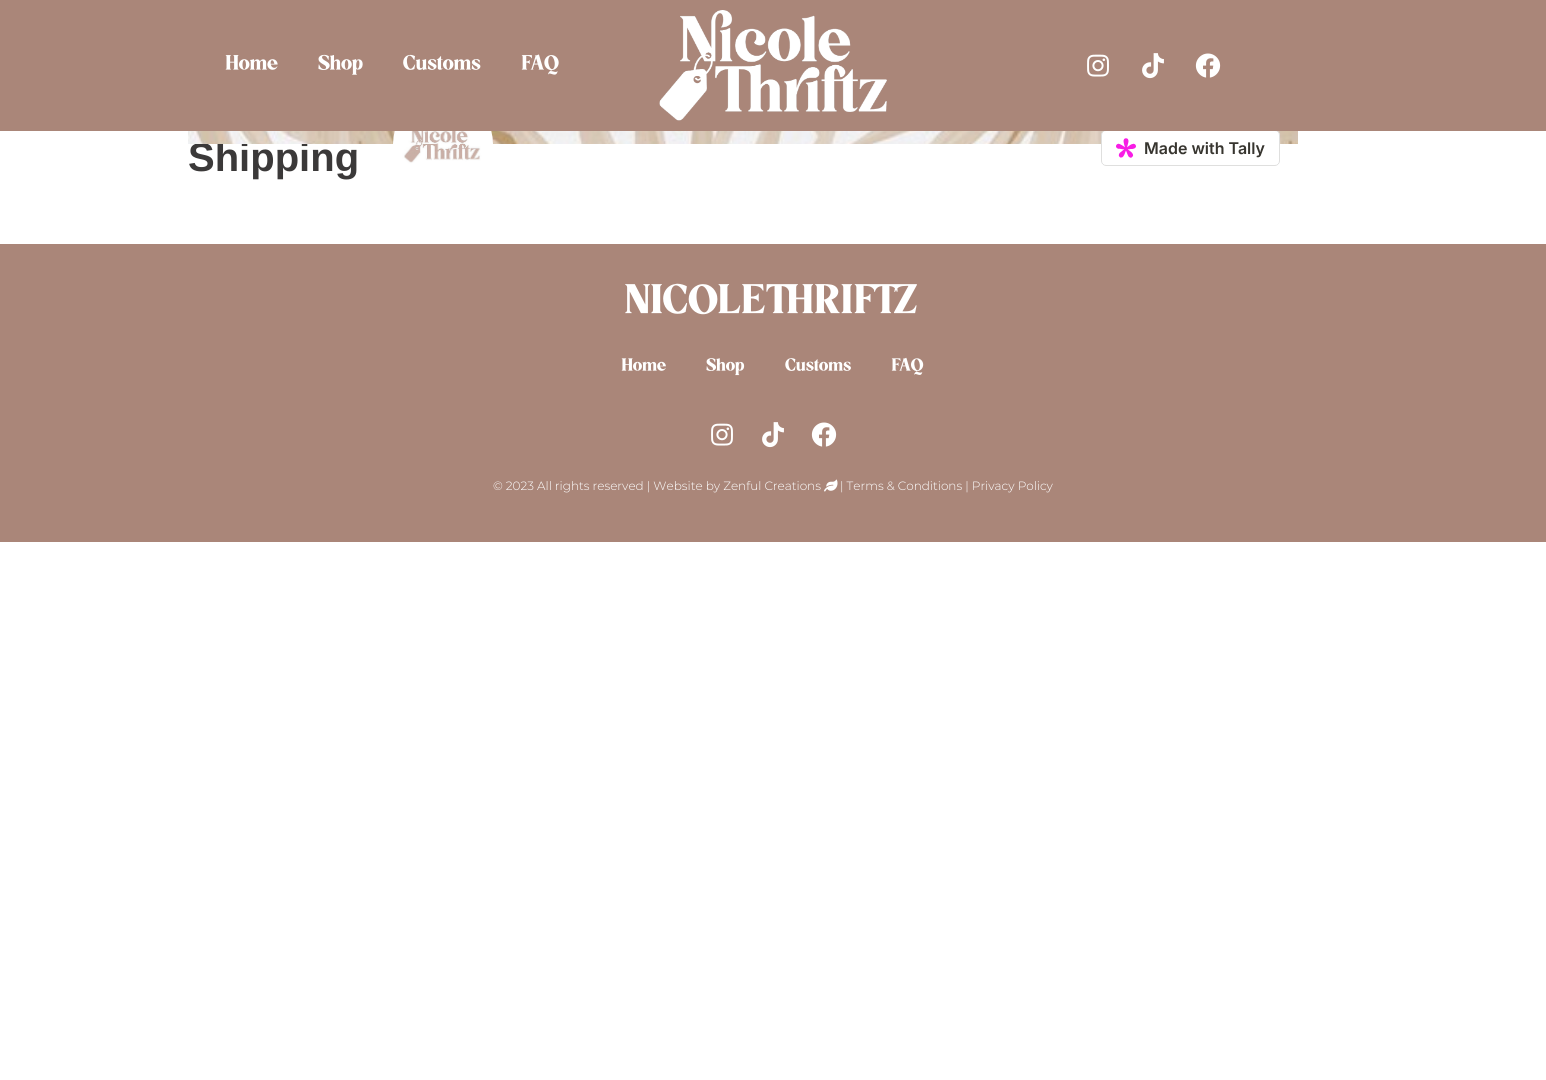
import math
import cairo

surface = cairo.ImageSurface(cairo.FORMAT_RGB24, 1546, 1080)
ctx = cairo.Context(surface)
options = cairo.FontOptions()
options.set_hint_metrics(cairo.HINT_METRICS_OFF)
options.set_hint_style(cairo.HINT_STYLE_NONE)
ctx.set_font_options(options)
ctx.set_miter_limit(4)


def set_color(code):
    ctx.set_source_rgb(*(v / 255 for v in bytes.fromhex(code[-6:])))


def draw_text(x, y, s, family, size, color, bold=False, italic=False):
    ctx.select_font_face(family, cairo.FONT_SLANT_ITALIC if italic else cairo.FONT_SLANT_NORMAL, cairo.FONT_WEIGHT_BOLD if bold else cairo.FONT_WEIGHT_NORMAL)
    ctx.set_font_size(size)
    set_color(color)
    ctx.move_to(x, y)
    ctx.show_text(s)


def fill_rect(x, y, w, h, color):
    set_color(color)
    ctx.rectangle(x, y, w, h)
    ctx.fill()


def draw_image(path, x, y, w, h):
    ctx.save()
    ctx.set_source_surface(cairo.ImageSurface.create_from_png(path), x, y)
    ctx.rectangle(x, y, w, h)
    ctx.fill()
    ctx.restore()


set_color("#ffffff")
ctx.paint()
fill_rect(0, 0, 1546, 131, "#aa8679")
draw_image("assets/img1.png", 225, 55, 53, 15)
draw_image("assets/img2.png", 318, 54, 45, 21)
draw_image("assets/img3.png", 403, 54, 78, 16)
draw_image("assets/img4.png", 521, 54, 38, 21)
draw_image("assets/img5.png", 659, 10, 228, 111)
draw_image("assets/img6.png", 1087, 54, 22, 23)
draw_image("assets/img7.png", 1142, 53, 22, 26)
draw_image("assets/img8.png", 1195, 53, 26, 25)
draw_text(188, 171, "Shipping", "Liberation Sans", 40, "#3b3939", bold=True)
draw_image("assets/img9.png", 188, 131, 1110, 35)
fill_rect(0, 244, 1546, 298, "#aa8679")
draw_image("assets/img10.png", 625, 283, 292, 32)
draw_image("assets/img11.png", 621, 358, 45, 13)
draw_image("assets/img12.png", 706, 358, 39, 18)
draw_image("assets/img13.png", 785, 358, 66, 13)
draw_image("assets/img14.png", 891, 357, 33, 18)
draw_image("assets/img6.png", 711, 423, 22, 23)
draw_image("assets/img7.png", 762, 422, 22, 26)
draw_image("assets/img8.png", 811, 422, 26, 25)
draw_text(493, 490, "© 2023 All rights reserved | Website by Zenful Creations", "Montserrat Light", 12, "#ffffff")
draw_image("assets/img15.png", 824, 479, 14, 13)
draw_text(840, 490, "| Terms & Conditions | Privacy Policy", "Montserrat Light", 12, "#ffffff")
surface.write_to_png("output.png")
